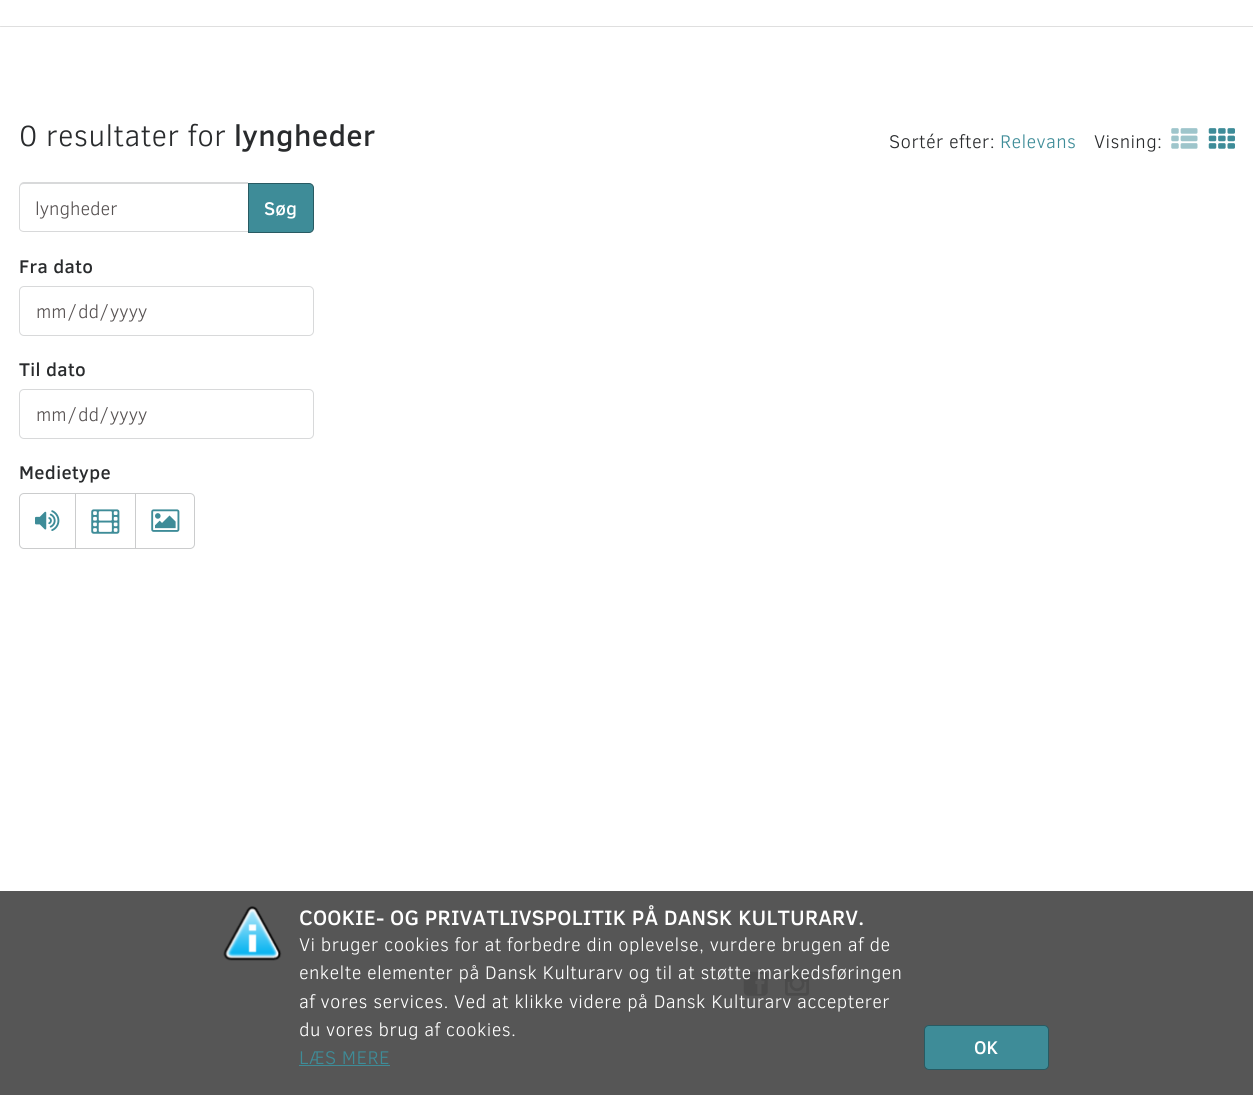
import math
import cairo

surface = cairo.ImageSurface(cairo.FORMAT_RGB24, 1253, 1095)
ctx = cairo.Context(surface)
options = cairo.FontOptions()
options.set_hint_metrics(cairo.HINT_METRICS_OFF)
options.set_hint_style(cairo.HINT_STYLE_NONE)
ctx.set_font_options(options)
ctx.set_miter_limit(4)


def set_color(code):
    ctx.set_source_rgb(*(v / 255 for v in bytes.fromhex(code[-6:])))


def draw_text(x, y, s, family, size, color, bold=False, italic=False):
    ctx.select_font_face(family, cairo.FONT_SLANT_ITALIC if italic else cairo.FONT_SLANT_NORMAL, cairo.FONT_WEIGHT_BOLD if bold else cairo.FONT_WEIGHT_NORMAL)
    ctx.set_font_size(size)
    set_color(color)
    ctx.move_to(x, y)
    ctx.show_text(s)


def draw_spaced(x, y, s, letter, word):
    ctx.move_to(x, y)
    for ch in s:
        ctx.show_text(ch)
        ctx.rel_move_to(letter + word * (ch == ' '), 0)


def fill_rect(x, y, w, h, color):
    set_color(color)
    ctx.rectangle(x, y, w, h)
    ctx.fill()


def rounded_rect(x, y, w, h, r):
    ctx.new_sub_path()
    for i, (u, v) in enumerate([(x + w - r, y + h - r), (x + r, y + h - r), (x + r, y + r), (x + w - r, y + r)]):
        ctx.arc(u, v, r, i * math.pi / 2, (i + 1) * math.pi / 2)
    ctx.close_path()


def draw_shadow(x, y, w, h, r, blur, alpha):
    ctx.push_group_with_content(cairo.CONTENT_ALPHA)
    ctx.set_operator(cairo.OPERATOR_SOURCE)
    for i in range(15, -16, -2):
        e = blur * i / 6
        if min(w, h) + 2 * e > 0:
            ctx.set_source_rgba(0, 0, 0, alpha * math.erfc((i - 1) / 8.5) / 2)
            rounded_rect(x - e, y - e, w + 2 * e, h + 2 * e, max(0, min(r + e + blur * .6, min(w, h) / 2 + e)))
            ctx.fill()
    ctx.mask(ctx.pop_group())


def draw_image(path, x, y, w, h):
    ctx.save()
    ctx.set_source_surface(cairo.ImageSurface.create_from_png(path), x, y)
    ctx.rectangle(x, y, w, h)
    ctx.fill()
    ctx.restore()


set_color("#ffffff")
ctx.paint()
fill_rect(0, 891, 1253, 204, "#565656")
ctx.save()
ctx.rectangle(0, 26, 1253, 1)
ctx.clip()
set_color("#000000")
draw_shadow(0, -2, 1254, 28, 0, 0.5, 0.5)
ctx.restore()
ctx.select_font_face("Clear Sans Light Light")
ctx.set_font_size(30)
set_color("#292b2d")
draw_spaced(19, 146, "0 resultater for", 0.38, 0)
ctx.select_font_face("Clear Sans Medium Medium")
draw_spaced(234, 146, "lyngheder", 0.38, 0)
set_color("#d8d9da")
ctx.set_fill_rule(cairo.FILL_RULE_EVEN_ODD)
ctx.new_path()
ctx.move_to(24, 182)
ctx.line_to(248, 182)
ctx.line_to(248, 232)
ctx.line_to(24, 232)
ctx.curve_to(21, 232, 19, 230, 19, 228)
ctx.line_to(19, 188)
ctx.curve_to(19, 185, 21, 182, 24, 182)
ctx.close_path()
ctx.move_to(24, 184)
ctx.line_to(248, 184)
ctx.line_to(248, 231)
ctx.line_to(24, 231)
ctx.curve_to(22, 231, 20, 230, 20, 228)
ctx.line_to(20, 188)
ctx.curve_to(20, 185, 22, 184, 24, 184)
ctx.close_path()
ctx.fill()
draw_text(35, 215, "lyngheder", "Clear Sans Light Light", 18.75, "#575252")
set_color("#3e8c98")
ctx.new_path()
ctx.move_to(248.5, 183.5)
ctx.line_to(309, 183.5)
ctx.curve_to(311.5, 183.5, 313.5, 185.5, 313.5, 188)
ctx.line_to(313.5, 228)
ctx.curve_to(313.5, 230.5, 311.5, 232.5, 309, 232.5)
ctx.line_to(248.5, 232.5)
ctx.close_path()
ctx.fill_preserve()
set_color("#285a62")
ctx.set_line_width(1)
ctx.stroke()
draw_text(264, 215, "Søg", "Clear Sans Medium Medium", 18.75, "#ffffff")
set_color("#292b2d")
draw_spaced(19, 273, "Fra dato", 0.38, 0)
rounded_rect(19.5, 286.5, 294, 49, 4.5)
set_color("#d8d9da")
ctx.stroke()
draw_text(36, 318, "mm", "Clear Sans Light Light", 18.75, "#575252")
draw_text(68, 318, "/", "Clear Sans Light Light", 18.75, "#575252")
draw_text(78, 318, "dd", "Clear Sans Light Light", 18.75, "#575252")
draw_text(100, 318, "/", "Clear Sans Light Light", 18.75, "#575252")
draw_text(110, 318, "yyyy", "Clear Sans Light Light", 18.75, "#575252")
ctx.select_font_face("Clear Sans Medium Medium")
set_color("#292b2d")
draw_spaced(19, 376, "Til dato", 0.38, 0)
rounded_rect(19.5, 389.5, 294, 49, 4.5)
set_color("#d8d9da")
ctx.stroke()
draw_text(36, 421, "mm", "Clear Sans Light Light", 18.75, "#575252")
draw_text(68, 421, "/", "Clear Sans Light Light", 18.75, "#575252")
draw_text(78, 421, "dd", "Clear Sans Light Light", 18.75, "#575252")
draw_text(100, 421, "/", "Clear Sans Light Light", 18.75, "#575252")
draw_text(110, 421, "yyyy", "Clear Sans Light Light", 18.75, "#575252")
ctx.select_font_face("Clear Sans Medium Medium")
set_color("#292b2d")
draw_spaced(19, 479, "Medietype", 0.38, 0)
ctx.new_path()
ctx.move_to(24, 493.5)
ctx.line_to(75.5, 493.5)
ctx.line_to(75.5, 548.5)
ctx.line_to(24, 548.5)
ctx.curve_to(21.5, 548.5, 19.5, 546.5, 19.5, 544)
ctx.line_to(19.5, 498)
ctx.curve_to(19.5, 495.5, 21.5, 493.5, 24, 493.5)
ctx.close_path()
set_color("#cbcccd")
ctx.stroke()
draw_image("assets/img1.png", 35, 510, 25, 21)
ctx.rectangle(75.5, 493.5, 60, 55)
ctx.stroke()
draw_image("assets/img2.png", 91, 509, 29, 25)
set_color("#ffffff")
ctx.new_path()
ctx.move_to(135.5, 493.5)
ctx.line_to(190, 493.5)
ctx.curve_to(192.5, 493.5, 194.5, 495.5, 194.5, 498)
ctx.line_to(194.5, 544)
ctx.curve_to(194.5, 546.5, 192.5, 548.5, 190, 548.5)
ctx.line_to(135.5, 548.5)
ctx.close_path()
ctx.fill_preserve()
set_color("#cbcccd")
ctx.stroke()
draw_image("assets/img3.png", 151, 509, 29, 23)
ctx.select_font_face("Clear Sans Light Light")
set_color("#292b2d")
draw_spaced(889, 148, "Sortér efter:", 0.38, 0)
set_color("#3e8c98")
draw_spaced(1000, 148, "Relevans", 0.38, 0)
set_color("#292b2d")
draw_spaced(1094, 148, "Visning:", 0.38, 0)
draw_image("assets/img4.png", 1171, 128, 27, 21)
draw_image("assets/img5.png", 1208, 128, 27, 21)
draw_image("assets/img6.png", 223, 906, 59, 55)
ctx.select_font_face("Clear Sans Medium Medium")
ctx.set_font_size(21.25)
set_color("#ffffff")
draw_spaced(299, 925, "COOKIE- OG PRIVATLIVSPOLITIK PÅ DANSK KULTURARV.", 0.2, 0)
ctx.select_font_face("Clear Sans Light Light")
ctx.set_font_size(18.75)
draw_spaced(299, 951, "Vi bruger cookies for at forbedre din oplevelse, vurdere brugen af de", 0.38, 0)
draw_image("assets/img7.png", 743, 971, 25, 25)
draw_image("assets/img8.png", 785, 971, 24, 25)
draw_spaced(299, 979, "enkelte elementer på Dansk Kulturarv og til at støtte markedsføringen", 0.38, 0)
draw_spaced(299, 1008, "af vores services. Ved at klikke videre på Dansk Kulturarv accepterer", 0.38, 0)
draw_spaced(299, 1036, "du vores brug af cookies.", 0.38, 0)
set_color("#3e8c98")
draw_spaced(299, 1064, "LÆS MERE", 0.38, 0)
fill_rect(299, 1065, 91, 1, "#3e8c98")
rounded_rect(924.5, 1025.5, 124, 44, 4.5)
ctx.fill_preserve()
set_color("#285a62")
ctx.stroke()
draw_text(974, 1054, "OK", "Clear Sans Medium Medium", 18.75, "#ffffff")
surface.write_to_png("output.png")
